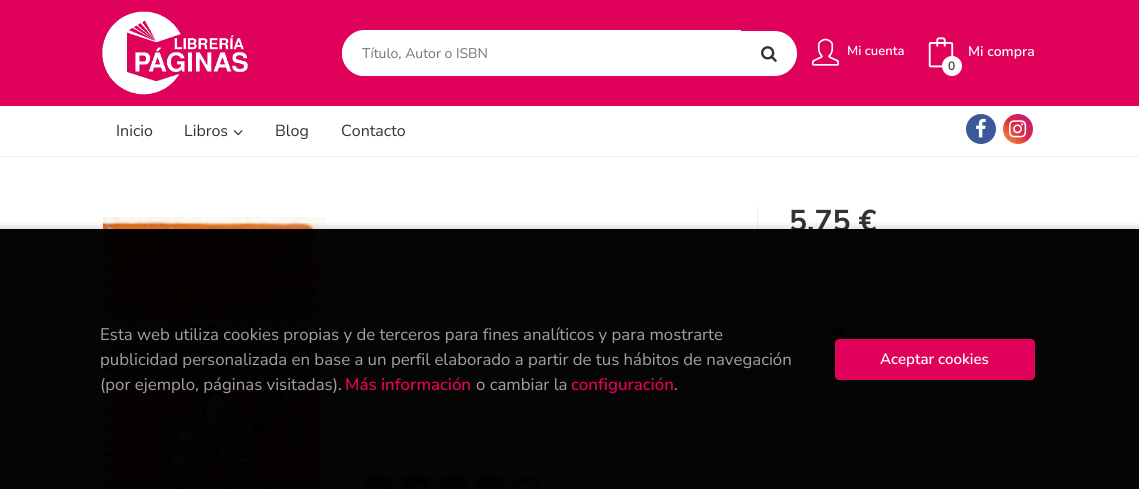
import math
import cairo

surface = cairo.ImageSurface(cairo.FORMAT_RGB24, 1139, 489)
ctx = cairo.Context(surface)
options = cairo.FontOptions()
options.set_hint_metrics(cairo.HINT_METRICS_OFF)
options.set_hint_style(cairo.HINT_STYLE_NONE)
ctx.set_font_options(options)
ctx.set_miter_limit(4)


def set_color(code):
    ctx.set_source_rgb(*(v / 255 for v in bytes.fromhex(code[-6:])))


def draw_text(x, y, s, family, size, color, bold=False, italic=False):
    ctx.select_font_face(family, cairo.FONT_SLANT_ITALIC if italic else cairo.FONT_SLANT_NORMAL, cairo.FONT_WEIGHT_BOLD if bold else cairo.FONT_WEIGHT_NORMAL)
    ctx.set_font_size(size)
    set_color(color)
    ctx.move_to(x, y)
    ctx.show_text(s)


def fill_rect(x, y, w, h, color):
    set_color(color)
    ctx.rectangle(x, y, w, h)
    ctx.fill()


def rounded_rect(x, y, w, h, r):
    ctx.new_sub_path()
    for i, (u, v) in enumerate([(x + w - r, y + h - r), (x + r, y + h - r), (x + r, y + r), (x + w - r, y + r)]):
        ctx.arc(u, v, r, i * math.pi / 2, (i + 1) * math.pi / 2)
    ctx.close_path()


def draw_shadow(x, y, w, h, r, blur, alpha):
    ctx.push_group_with_content(cairo.CONTENT_ALPHA)
    ctx.set_operator(cairo.OPERATOR_SOURCE)
    for i in range(15, -16, -2):
        e = blur * i / 6
        if min(w, h) + 2 * e > 0:
            ctx.set_source_rgba(0, 0, 0, alpha * math.erfc((i - 1) / 8.5) / 2)
            rounded_rect(x - e, y - e, w + 2 * e, h + 2 * e, max(0, min(r + e + blur * .6, min(w, h) / 2 + e)))
            ctx.fill()
    ctx.mask(ctx.pop_group())


def draw_image(path, x, y, w, h):
    ctx.save()
    ctx.set_source_surface(cairo.ImageSurface.create_from_png(path), x, y)
    ctx.rectangle(x, y, w, h)
    ctx.fill()
    ctx.restore()


set_color("#ffffff")
ctx.paint()
fill_rect(0, 0, 1139, 106, "#df015a")
draw_image("assets/img1.png", 102, 11, 146, 84)
set_color("#ffffff")
ctx.new_path()
ctx.move_to(364.5, 31)
ctx.line_to(741, 31)
ctx.line_to(741, 76)
ctx.line_to(364.5, 76)
ctx.curve_to(352, 76, 342, 66, 342, 53.5)
ctx.curve_to(342, 41, 352, 31, 364.5, 31)
ctx.close_path()
ctx.fill()
ctx.set_fill_rule(cairo.FILL_RULE_EVEN_ODD)
ctx.new_path()
ctx.move_to(364, 30)
ctx.line_to(741, 30)
ctx.line_to(741, 76)
ctx.line_to(364, 76)
ctx.curve_to(352, 76, 342, 65, 342, 53)
ctx.curve_to(342, 41, 352, 30, 364, 30)
ctx.close_path()
ctx.move_to(364, 32)
ctx.line_to(741, 32)
ctx.line_to(741, 74)
ctx.line_to(364, 74)
ctx.curve_to(353, 74, 344, 64, 344, 53)
ctx.curve_to(344, 42, 353, 32, 364, 32)
ctx.close_path()
ctx.fill()
draw_text(362, 58, "Título, Autor o ISBN", "Nunito Sans", 14, "#757575")
set_color("#ffffff")
ctx.new_path()
ctx.move_to(741, 31)
ctx.line_to(774.5, 31)
ctx.curve_to(787, 31, 797, 41, 797, 53.5)
ctx.curve_to(797, 66, 787, 76, 774.5, 76)
ctx.line_to(741, 76)
ctx.close_path()
ctx.fill()
draw_image("assets/img2.png", 761, 46, 16, 16)
draw_image("assets/img3.png", 812, 38, 27, 28)
draw_text(847, 55, "Mi cuenta", "Nunito Sans SemiBold", 13, "#ffffff")
draw_image("assets/img4.png", 928, 37, 26, 31)
draw_text(968, 56, "Mi compra", "Nunito Sans SemiBold", 14, "#ffffff")
ctx.new_path()
ctx.arc(952, 66, 10, 0, 2 * math.pi)
ctx.fill()
draw_text(948, 70, "0", "Nunito Sans SemiBold", 12, "#333333")
fill_rect(0, 156, 1139, 1, "#eeeeee")
draw_text(116, 136, "Inicio", "Nunito Sans", 16, "#333333")
draw_text(184, 136, "Libros", "Nunito Sans", 16, "#333333")
draw_image("assets/img5.png", 233, 130, 10, 6)
draw_text(275, 136, "Blog", "Nunito Sans", 16, "#333333")
draw_text(341, 136, "Contacto", "Nunito Sans", 16, "#333333")
set_color("#3b5998")
ctx.new_path()
ctx.arc(981, 129, 15, 0, 2 * math.pi)
ctx.fill()
draw_image("assets/img6.png", 976, 118, 10, 20)
gradient = cairo.LinearGradient(1003, 144, 1033, 114)
gradient.add_color_stop_rgba(0, 0.941, 0.58, 0.2, 1)
gradient.add_color_stop_rgba(0.25, 0.902, 0.408, 0.235, 1)
gradient.add_color_stop_rgba(0.5, 0.863, 0.153, 0.263, 1)
gradient.add_color_stop_rgba(0.75, 0.8, 0.137, 0.4, 1)
gradient.add_color_stop_rgba(1, 0.737, 0.094, 0.533, 1)
ctx.set_source(gradient)
ctx.arc(1018, 129, 15, 0, 2 * math.pi)
ctx.fill()
draw_image("assets/img7.png", 1009, 120, 18, 18)
fill_rect(757, 207, 1, 282, "#eeeeee")
draw_image("assets/img8.png", 103, 217, 223, 272)
set_color("#3b5998")
rounded_rect(365, 476, 28, 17, 4)
ctx.fill()
draw_image("assets/img9.png", 374, 481, 10, 8)
set_color("#00aced")
rounded_rect(402, 476, 28, 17, 4)
ctx.fill()
draw_image("assets/img10.png", 409, 484, 16, 5)
set_color("#007bb6")
rounded_rect(439, 476, 28, 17, 4)
ctx.fill()
draw_image("assets/img11.png", 445, 483, 15, 6)
set_color("#cb2027")
rounded_rect(476, 476, 28, 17, 4)
ctx.fill()
draw_image("assets/img12.png", 482, 482, 16, 7)
set_color("#3490f3")
rounded_rect(513, 476, 28, 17, 4)
ctx.fill()
draw_image("assets/img13.png", 518, 484, 18, 5)
draw_text(789, 231, "5,75 €", "Nunito Sans", 30, "#333333", bold=True)
rounded_rect(786.5, 314.5, 253, 39, 2.5)
set_color("#e3e3e3")
ctx.set_line_width(1)
ctx.stroke()
rounded_rect(787.5, 315.5, 251, 37, 2.5)
set_color("#df015a")
ctx.stroke()
draw_image("assets/img14.png", 832, 327, 15, 13)
ctx.save()
ctx.set_fill_rule(cairo.FILL_RULE_WINDING)
ctx.rectangle(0, 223, 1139, 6)
ctx.clip()
set_color("#000000")
draw_shadow(-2, 227, 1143, 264, 0, 4, 0.15)
ctx.restore()
ctx.set_source_rgba(0, 0, 0, 0.98)
ctx.rectangle(0, 229, 1139, 260)
ctx.fill()
draw_text(100, 340, "Esta web utiliza cookies propias y de terceros para fines analíticos y para mostrarte", "Nunito Sans", 16.8, "#a2a2a2")
draw_text(100, 365, "publicidad personalizada en base a un perfil elaborado a partir de tus hábitos de navegación", "Nunito Sans", 16.8, "#a2a2a2")
draw_text(100, 390, "(por ejemplo, páginas visitadas).", "Nunito Sans", 16.8, "#a2a2a2")
draw_text(345, 390, "Más información", "Nunito Sans SemiBold", 16.8, "#df015a")
draw_text(476, 390, "o cambiar la", "Nunito Sans", 16.8, "#a2a2a2")
draw_text(571, 390, "configuración", "Nunito Sans SemiBold", 16.8, "#df015a")
draw_text(674, 390, ".", "Nunito Sans", 16.8, "#a2a2a2")
set_color("#df015a")
rounded_rect(835.5, 339.5, 199, 40, 3.5)
ctx.fill_preserve()
ctx.stroke()
draw_text(880, 364, "Aceptar cookies", "Nunito Sans SemiBold", 15, "#ffffff")
surface.write_to_png("output.png")
